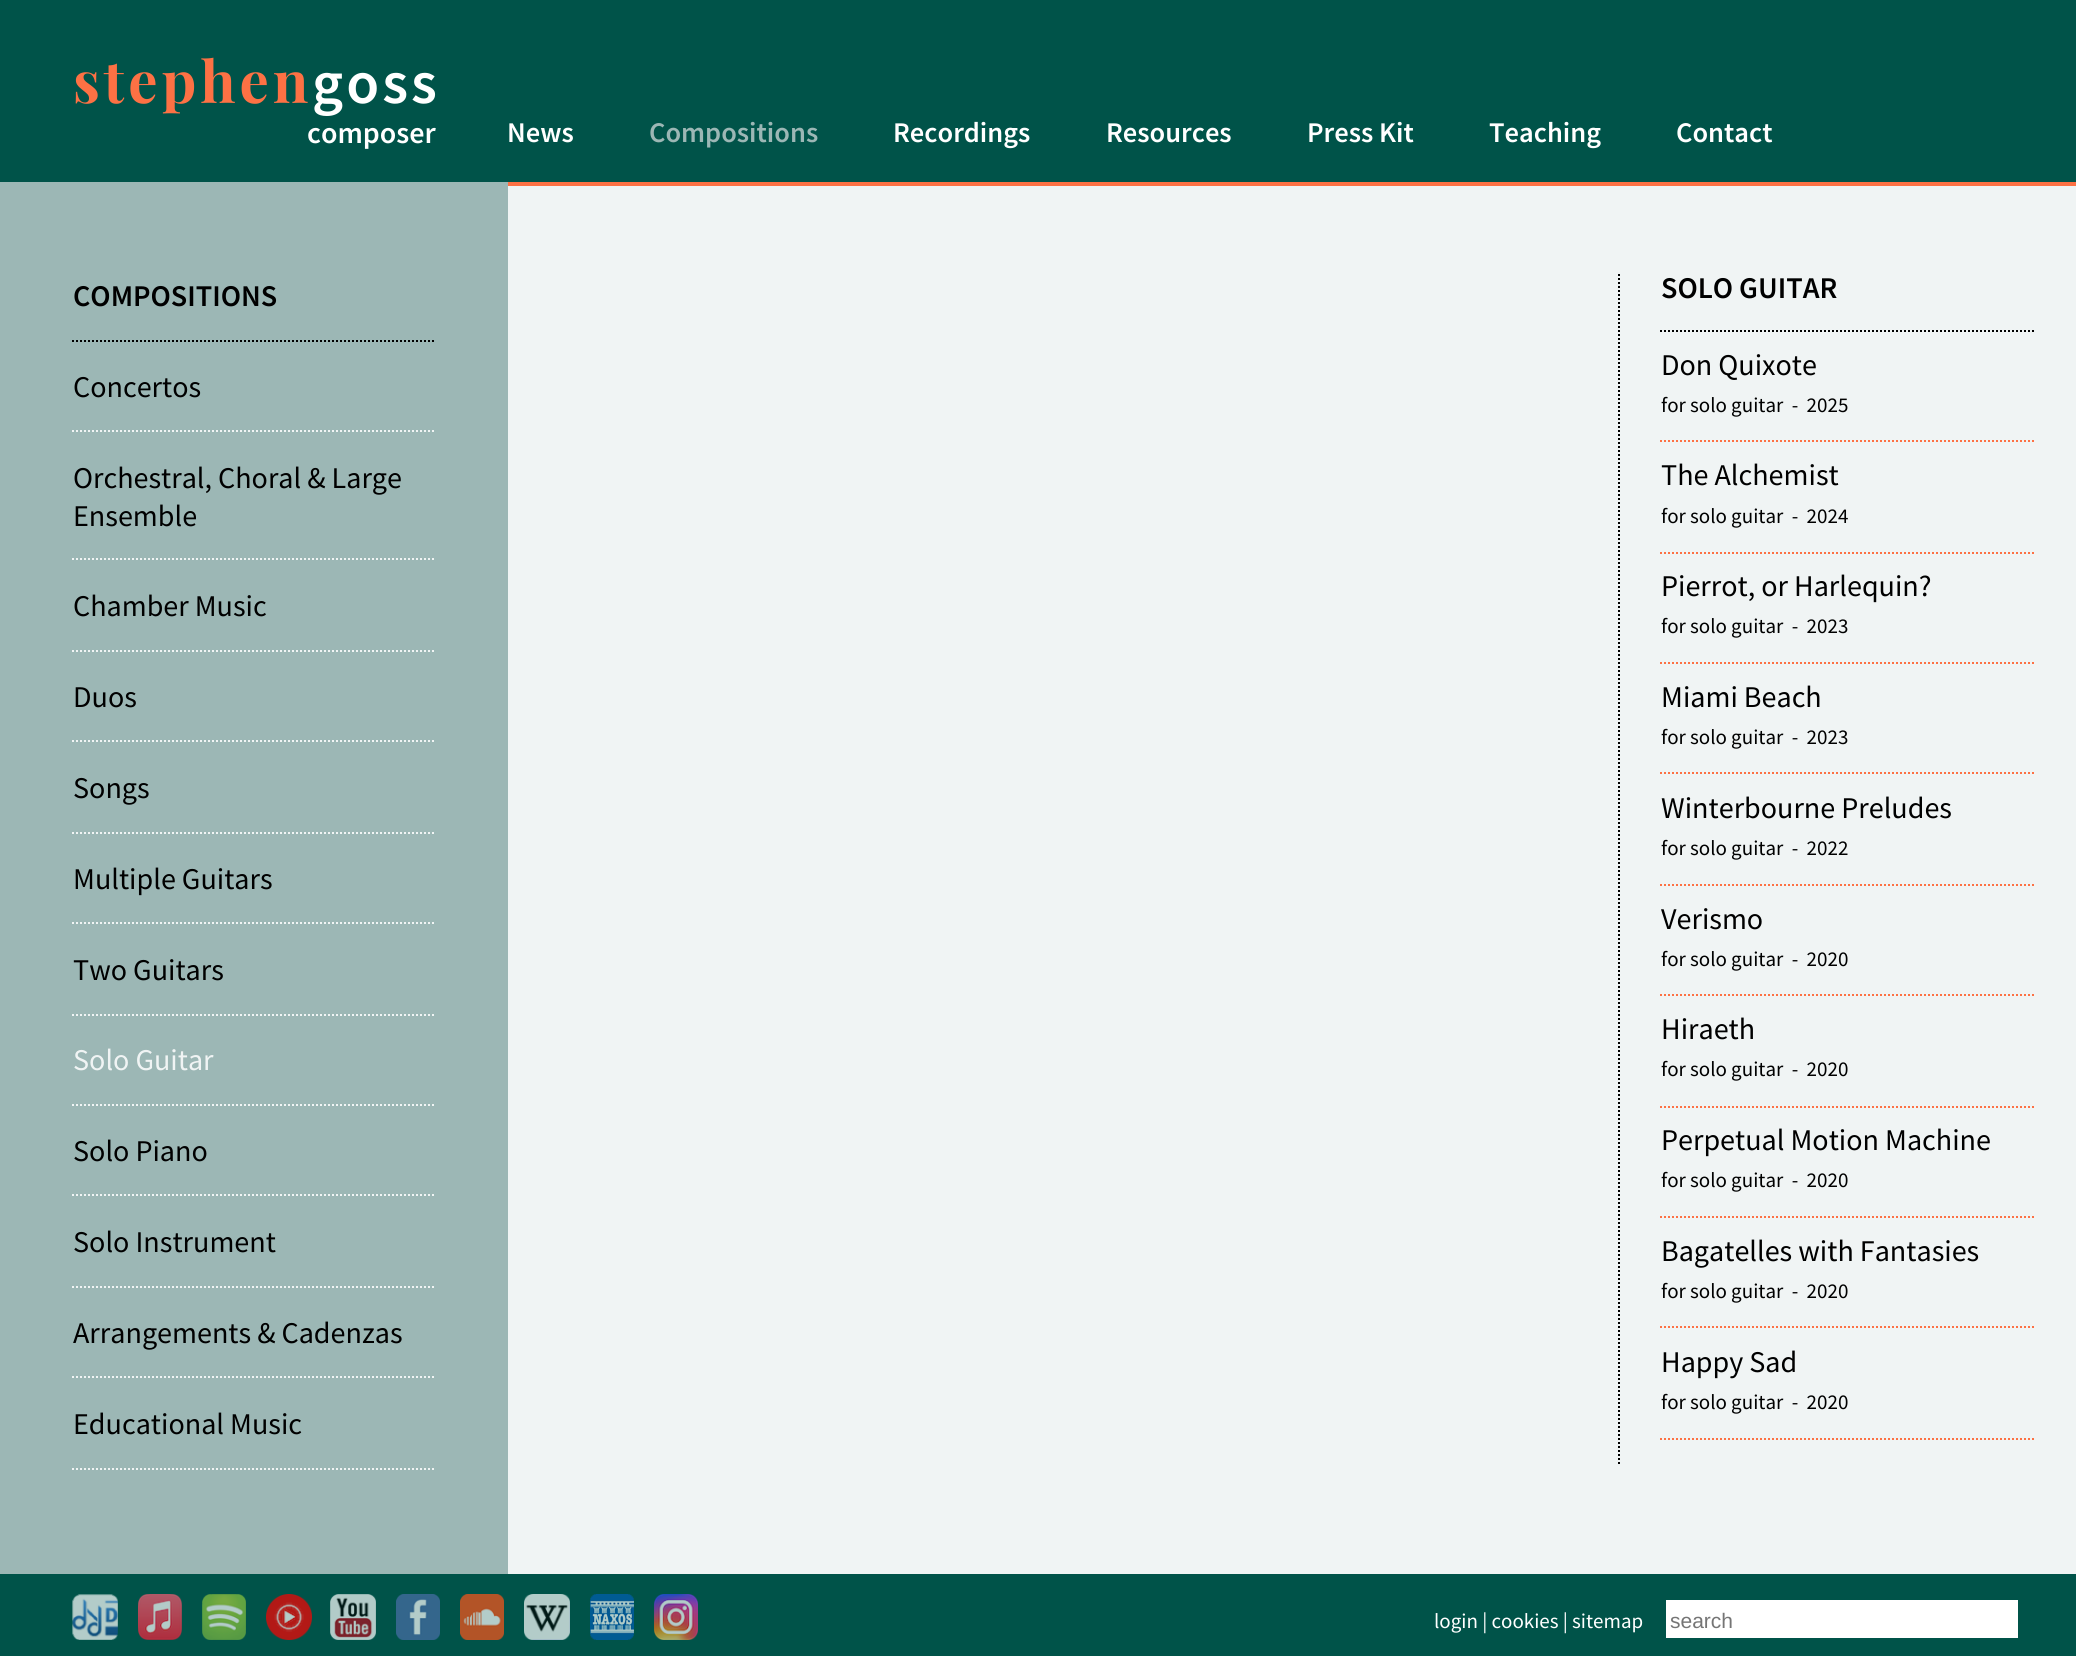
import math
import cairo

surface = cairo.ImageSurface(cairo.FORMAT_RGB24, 2076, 1656)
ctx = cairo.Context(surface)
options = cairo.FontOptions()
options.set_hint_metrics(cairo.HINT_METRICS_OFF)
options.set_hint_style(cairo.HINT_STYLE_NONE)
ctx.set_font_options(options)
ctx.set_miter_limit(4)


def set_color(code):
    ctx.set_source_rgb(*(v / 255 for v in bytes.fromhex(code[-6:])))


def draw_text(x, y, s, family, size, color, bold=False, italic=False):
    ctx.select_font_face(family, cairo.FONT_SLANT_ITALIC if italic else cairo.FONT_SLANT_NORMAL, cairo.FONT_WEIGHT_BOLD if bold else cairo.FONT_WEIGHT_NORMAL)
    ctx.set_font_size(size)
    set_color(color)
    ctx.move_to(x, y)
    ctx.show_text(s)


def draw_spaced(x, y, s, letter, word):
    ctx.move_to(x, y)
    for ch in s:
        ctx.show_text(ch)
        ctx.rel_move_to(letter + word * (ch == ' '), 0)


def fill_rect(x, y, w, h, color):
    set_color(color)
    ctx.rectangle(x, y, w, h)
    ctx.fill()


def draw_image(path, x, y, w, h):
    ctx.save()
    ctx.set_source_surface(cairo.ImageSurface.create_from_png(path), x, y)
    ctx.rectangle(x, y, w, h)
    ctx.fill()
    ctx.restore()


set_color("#005349")
ctx.paint()
ctx.select_font_face("Playfair Display", cairo.FONT_SLANT_NORMAL, cairo.FONT_WEIGHT_BOLD)
ctx.set_font_size(58)
set_color("#fd7144")
draw_spaced(73, 103, "stephen", 4, 0)
ctx.select_font_face("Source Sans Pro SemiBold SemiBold")
ctx.set_font_size(60)
set_color("#ffffff")
draw_spaced(312, 103, "goss", 3, 0)
draw_text(307, 143, "composer", "Source Sans Pro SemiBold SemiBold", 30.1, "#ffffff")
draw_text(507, 142, "News", "Source Sans Pro SemiBold SemiBold", 28.5, "#ffffff")
draw_text(649, 142, "Compositions", "Source Sans Pro SemiBold SemiBold", 28.5, "#9cb7b5")
draw_text(893, 142, "Recordings", "Source Sans Pro SemiBold SemiBold", 28.5, "#ffffff")
draw_text(1106, 142, "Resources", "Source Sans Pro SemiBold SemiBold", 28.5, "#ffffff")
draw_text(1307, 142, "Press Kit", "Source Sans Pro SemiBold SemiBold", 28.5, "#ffffff")
draw_text(1489, 142, "Teaching", "Source Sans Pro SemiBold SemiBold", 28.5, "#ffffff")
draw_text(1676, 142, "Contact", "Source Sans Pro SemiBold SemiBold", 28.5, "#ffffff")
fill_rect(508, 186, 1568, 1388, "#f0f4f4")
fill_rect(508, 182, 1568, 4, "#fd7144")
fill_rect(0, 182, 508, 1392, "#9cb7b5")
ctx.new_path()
ctx.move_to(72, 341)
ctx.line_to(436, 341)
set_color("#000000")
ctx.set_dash([2, 2])
ctx.stroke()
draw_text(73, 306, "COMPOSITIONS", "Source Sans Pro SemiBold SemiBold", 30.1, "#000000")
ctx.new_path()
ctx.move_to(72, 431)
ctx.line_to(436, 431)
set_color("#f0f4f4")
ctx.stroke()
draw_text(73, 397, "Concertos", "Source Sans Pro", 30.1, "#000000")
ctx.new_path()
ctx.move_to(72, 559)
ctx.line_to(436, 559)
set_color("#f0f4f4")
ctx.stroke()
draw_text(73, 488, "Orchestral, Choral & Large", "Source Sans Pro", 30.1, "#000000")
draw_text(73, 526, "Ensemble", "Source Sans Pro", 30.1, "#000000")
ctx.new_path()
ctx.move_to(72, 651)
ctx.line_to(436, 651)
set_color("#f0f4f4")
ctx.stroke()
draw_text(73, 616, "Chamber Music", "Source Sans Pro", 30.1, "#000000")
ctx.new_path()
ctx.move_to(72, 741)
ctx.line_to(436, 741)
set_color("#f0f4f4")
ctx.stroke()
draw_text(73, 707, "Duos", "Source Sans Pro", 30.1, "#000000")
ctx.new_path()
ctx.move_to(72, 833)
ctx.line_to(436, 833)
set_color("#f0f4f4")
ctx.stroke()
draw_text(73, 798, "Songs", "Source Sans Pro", 30.1, "#000000")
ctx.new_path()
ctx.move_to(72, 923)
ctx.line_to(436, 923)
set_color("#f0f4f4")
ctx.stroke()
draw_text(73, 889, "Multiple Guitars", "Source Sans Pro", 30.1, "#000000")
ctx.new_path()
ctx.move_to(72, 1015)
ctx.line_to(436, 1015)
set_color("#f0f4f4")
ctx.stroke()
draw_text(73, 980, "Two Guitars", "Source Sans Pro", 30.1, "#000000")
ctx.new_path()
ctx.move_to(72, 1105)
ctx.line_to(436, 1105)
set_color("#f0f4f4")
ctx.stroke()
draw_text(73, 1070, "Solo Guitar", "Source Sans Pro", 30.1, "#f0f4f4")
ctx.new_path()
ctx.move_to(72, 1195)
ctx.line_to(436, 1195)
ctx.stroke()
draw_text(73, 1161, "Solo Piano", "Source Sans Pro", 30.1, "#000000")
ctx.new_path()
ctx.move_to(72, 1287)
ctx.line_to(436, 1287)
set_color("#f0f4f4")
ctx.stroke()
draw_text(73, 1252, "Solo Instrument", "Source Sans Pro", 30.1, "#000000")
ctx.new_path()
ctx.move_to(72, 1377)
ctx.line_to(436, 1377)
set_color("#f0f4f4")
ctx.stroke()
draw_text(73, 1343, "Arrangements & Cadenzas", "Source Sans Pro", 30.1, "#000000")
ctx.new_path()
ctx.move_to(72, 1469)
ctx.line_to(436, 1469)
set_color("#f0f4f4")
ctx.stroke()
draw_text(73, 1434, "Educational Music", "Source Sans Pro", 30.1, "#000000")
ctx.new_path()
ctx.move_to(1619, 274)
ctx.line_to(1619, 1466)
ctx.stroke()
ctx.new_path()
ctx.move_to(1660, 331)
ctx.line_to(2034, 331)
ctx.stroke()
draw_text(1661, 298, "SOLO GUITAR", "Source Sans Pro SemiBold SemiBold", 30.1, "#000000")
ctx.new_path()
ctx.move_to(1660, 441)
ctx.line_to(2034, 441)
set_color("#fd7144")
ctx.stroke()
draw_text(1661, 375, "Don Quixote", "Source Sans Pro", 30.1, "#000000")
draw_text(1661, 412, "for solo guitar  -  2025", "Source Sans Pro", 21, "#000000")
ctx.new_path()
ctx.move_to(1660, 553)
ctx.line_to(2034, 553)
set_color("#fd7144")
ctx.stroke()
draw_text(1661, 485, "The Alchemist", "Source Sans Pro", 30.1, "#000000")
draw_text(1661, 523, "for solo guitar  -  2024", "Source Sans Pro", 21, "#000000")
ctx.new_path()
ctx.move_to(1660, 663)
ctx.line_to(2034, 663)
set_color("#fd7144")
ctx.stroke()
draw_text(1661, 596, "Pierrot, or Harlequin?", "Source Sans Pro", 30.1, "#000000")
draw_text(1661, 633, "for solo guitar  -  2023", "Source Sans Pro", 21, "#000000")
ctx.new_path()
ctx.move_to(1660, 773)
ctx.line_to(2034, 773)
set_color("#fd7144")
ctx.stroke()
draw_text(1661, 707, "Miami Beach", "Source Sans Pro", 30.1, "#000000")
draw_text(1661, 744, "for solo guitar  -  2023", "Source Sans Pro", 21, "#000000")
ctx.new_path()
ctx.move_to(1660, 885)
ctx.line_to(2034, 885)
set_color("#fd7144")
ctx.stroke()
draw_text(1661, 818, "Winterbourne Preludes", "Source Sans Pro", 30.1, "#000000")
draw_text(1661, 855, "for solo guitar  -  2022", "Source Sans Pro", 21, "#000000")
ctx.new_path()
ctx.move_to(1660, 995)
ctx.line_to(2034, 995)
set_color("#fd7144")
ctx.stroke()
draw_text(1661, 929, "Verismo", "Source Sans Pro", 30.1, "#000000")
draw_text(1661, 966, "for solo guitar  -  2020", "Source Sans Pro", 21, "#000000")
ctx.new_path()
ctx.move_to(1660, 1107)
ctx.line_to(2034, 1107)
set_color("#fd7144")
ctx.stroke()
draw_text(1661, 1039, "Hiraeth", "Source Sans Pro", 30.1, "#000000")
draw_text(1661, 1076, "for solo guitar  -  2020", "Source Sans Pro", 21, "#000000")
ctx.new_path()
ctx.move_to(1660, 1217)
ctx.line_to(2034, 1217)
set_color("#fd7144")
ctx.stroke()
draw_text(1661, 1150, "Perpetual Motion Machine", "Source Sans Pro", 30.1, "#000000")
draw_text(1661, 1187, "for solo guitar  -  2020", "Source Sans Pro", 21, "#000000")
ctx.new_path()
ctx.move_to(1660, 1327)
ctx.line_to(2034, 1327)
set_color("#fd7144")
ctx.stroke()
draw_text(1661, 1261, "Bagatelles with Fantasies", "Source Sans Pro", 30.1, "#000000")
draw_text(1661, 1298, "for solo guitar  -  2020", "Source Sans Pro", 21, "#000000")
ctx.new_path()
ctx.move_to(1660, 1439)
ctx.line_to(2034, 1439)
set_color("#fd7144")
ctx.stroke()
draw_text(1661, 1372, "Happy Sad", "Source Sans Pro", 30.1, "#000000")
draw_text(1661, 1409, "for solo guitar  -  2020", "Source Sans Pro", 21, "#000000")
draw_image("assets/img1.png", 72, 1594, 46, 46)
draw_image("assets/img2.png", 138, 1594, 44, 46)
draw_image("assets/img3.png", 202, 1594, 44, 46)
draw_image("assets/img4.png", 266, 1594, 46, 46)
draw_image("assets/img5.png", 330, 1594, 46, 46)
draw_image("assets/img6.png", 396, 1594, 44, 46)
draw_image("assets/img7.png", 460, 1594, 44, 46)
draw_image("assets/img8.png", 524, 1594, 46, 46)
draw_image("assets/img9.png", 590, 1594, 44, 46)
draw_image("assets/img10.png", 654, 1594, 44, 46)
draw_text(1434, 1628, "login | cookies | sitemap", "Source Sans Pro", 21, "#ffffff")
fill_rect(1666, 1600, 352, 38, "#ffffff")
draw_text(1670, 1628, "search", "Liberation Sans", 21, "#757575")
surface.write_to_png("output.png")
